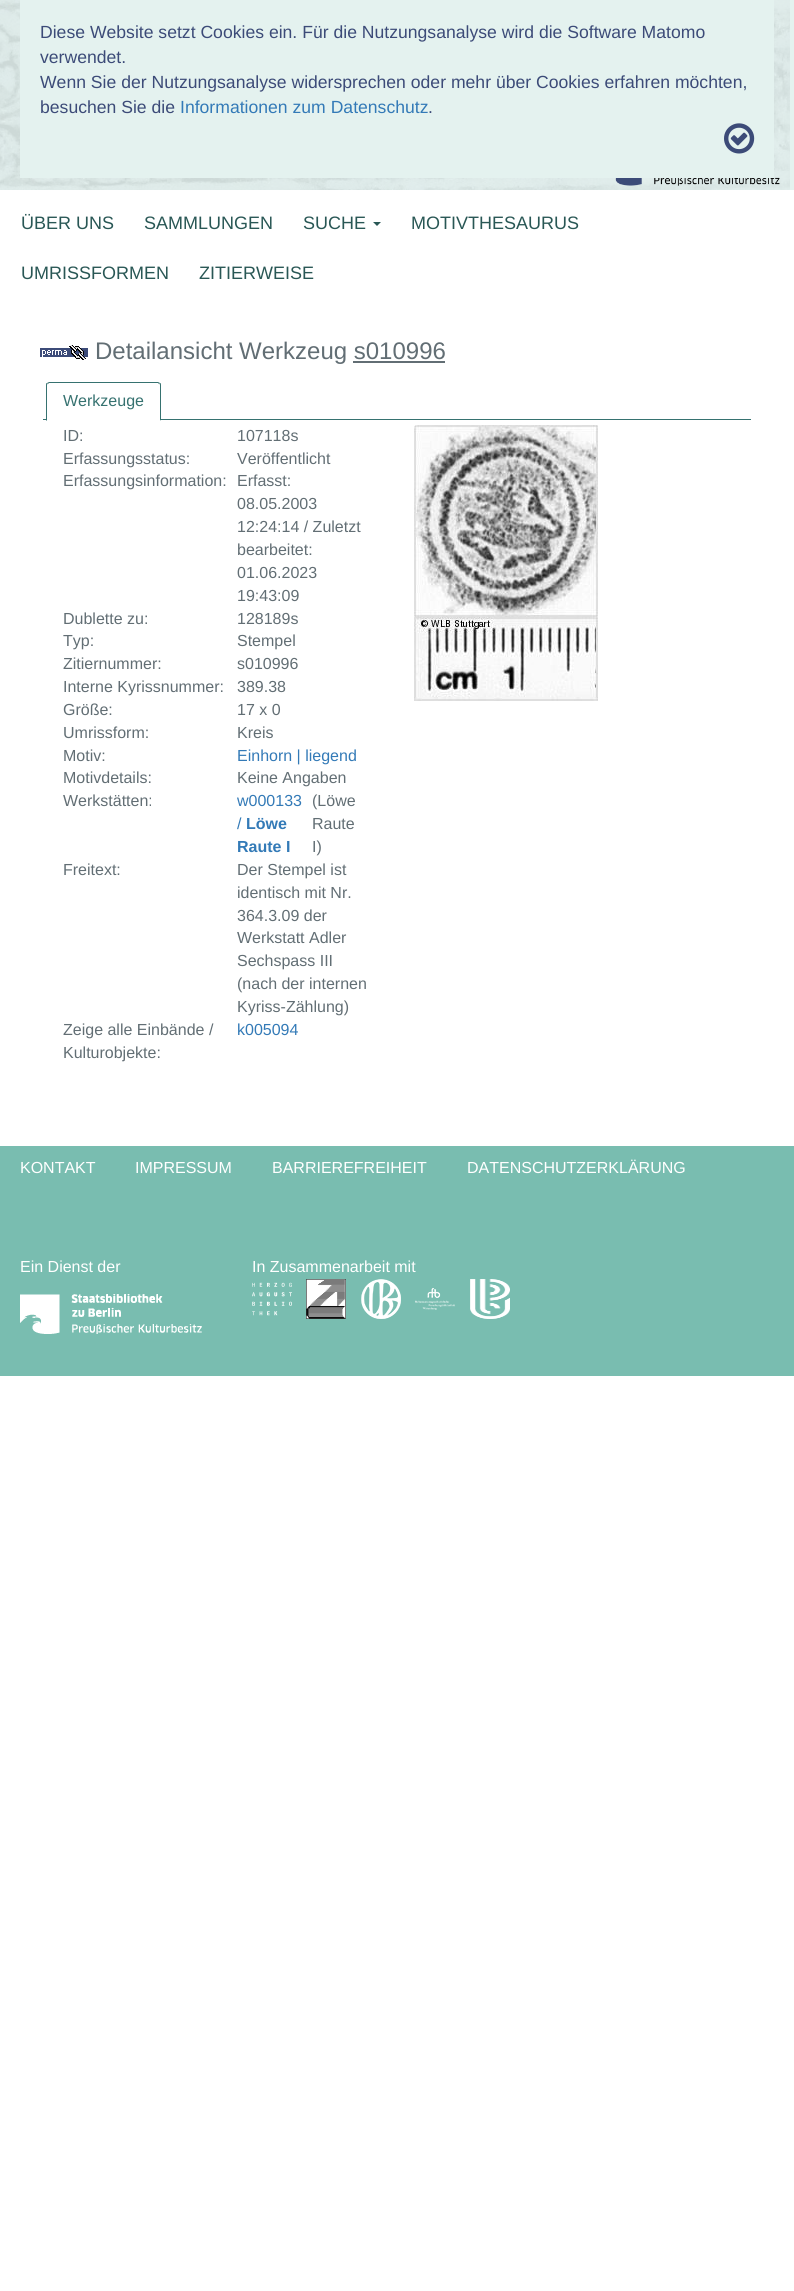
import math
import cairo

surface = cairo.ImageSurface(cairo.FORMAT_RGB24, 794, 2291)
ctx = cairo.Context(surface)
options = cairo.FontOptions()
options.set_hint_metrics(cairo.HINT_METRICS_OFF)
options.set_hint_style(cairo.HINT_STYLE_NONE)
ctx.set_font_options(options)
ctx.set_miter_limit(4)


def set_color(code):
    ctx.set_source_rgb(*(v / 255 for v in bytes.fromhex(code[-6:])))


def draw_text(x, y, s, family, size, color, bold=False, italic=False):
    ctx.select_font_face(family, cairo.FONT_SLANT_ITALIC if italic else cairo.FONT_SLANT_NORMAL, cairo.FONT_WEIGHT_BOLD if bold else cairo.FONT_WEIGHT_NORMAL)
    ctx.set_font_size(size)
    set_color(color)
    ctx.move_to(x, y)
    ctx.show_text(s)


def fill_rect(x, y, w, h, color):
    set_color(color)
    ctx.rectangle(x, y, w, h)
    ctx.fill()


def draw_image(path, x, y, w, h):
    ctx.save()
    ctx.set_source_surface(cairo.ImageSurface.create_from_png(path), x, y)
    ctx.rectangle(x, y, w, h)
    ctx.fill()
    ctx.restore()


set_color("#ffffff")
ctx.paint()
fill_rect(0, 0, 794, 190, "#e4f2ef")
draw_image("assets/img1.png", 0, 0, 790, 190)
draw_image("assets/img3.png", 615, 177, 165, 9)
fill_rect(20, 0, 754, 178, "#e4f2ef")
draw_text(40, 38, "Diese Website setzt Cookies ein. Für die Nutzungsanalyse wird die Software Matomo", "Liberation Sans", 17.6, "#3c4b78")
draw_text(40, 63, "verwendet.", "Liberation Sans", 17.6, "#3c4b78")
draw_text(40, 88, "Wenn Sie der Nutzungsanalyse widersprechen oder mehr über Cookies erfahren möchten,", "Liberation Sans", 17.6, "#3c4b78")
draw_text(40, 113, "besuchen Sie die", "Liberation Sans", 17.6, "#3c4b78")
draw_text(180, 113, "Informationen zum Datenschutz", "Liberation Sans", 17.6, "#337ab7")
draw_text(428, 113, ".", "Liberation Sans", 17.6, "#3c4b78")
draw_image("assets/img2.png", 724, 123, 31, 31)
draw_text(21, 229, "ÜBER UNS", "Liberation Sans", 18, "#295755")
draw_text(144, 229, "SAMMLUNGEN", "Liberation Sans", 18, "#295755")
draw_text(303, 229, "SUCHE", "Liberation Sans", 18, "#295755")
ctx.new_path()
ctx.move_to(373, 222)
ctx.line_to(381, 222)
ctx.line_to(377, 226)
ctx.close_path()
ctx.fill()
draw_text(411, 229, "MOTIVTHESAURUS", "Liberation Sans", 18, "#295755")
draw_text(21, 279, "UMRISSFORMEN", "Liberation Sans", 18, "#295755")
draw_text(199, 279, "ZITIERWEISE", "Liberation Sans", 18, "#295755")
draw_image("assets/img4.png", 40, 345, 48, 15)
draw_text(95, 359, "Detailansicht Werkzeug s010996", "Liberation Sans", 24, "#626e74")
fill_rect(353, 361, 92, 2, "#626e74")
fill_rect(43, 419, 708, 1, "#367270")
set_color("#ffffff")
ctx.new_path()
ctx.move_to(49, 382)
ctx.line_to(158, 382)
ctx.curve_to(159.5, 382, 161, 383.5, 161, 385)
ctx.line_to(161, 421)
ctx.line_to(46, 421)
ctx.line_to(46, 385)
ctx.curve_to(46, 383.5, 47.5, 382, 49, 382)
ctx.close_path()
ctx.fill()
set_color("#367270")
ctx.new_path()
ctx.move_to(49, 382)
ctx.line_to(47, 383)
ctx.line_to(48, 384)
ctx.line_to(49, 383)
ctx.line_to(158, 383)
ctx.line_to(159, 384)
ctx.line_to(160, 383)
ctx.line_to(158, 382)
ctx.close_path()
ctx.fill()
ctx.new_path()
ctx.move_to(161, 421)
ctx.line_to(161, 385)
ctx.curve_to(161, 384, 161, 383, 160, 383)
ctx.line_to(159.5, 383.5)
ctx.line_to(160, 385)
ctx.line_to(160, 420)
ctx.close_path()
ctx.fill()
set_color("#ffffff")
ctx.new_path()
ctx.move_to(161, 421)
ctx.line_to(160, 420)
ctx.line_to(47, 420)
ctx.line_to(46, 421)
ctx.close_path()
ctx.fill()
set_color("#367270")
ctx.new_path()
ctx.move_to(46, 421)
ctx.line_to(47, 420)
ctx.line_to(47, 385)
ctx.line_to(47.5, 383.5)
ctx.line_to(47, 383)
ctx.curve_to(46, 383, 46, 384, 46, 385)
ctx.close_path()
ctx.fill()
draw_text(63, 406, "Werkzeuge", "Liberation Sans", 16, "#367270")
draw_text(63, 441, "ID:", "Liberation Sans", 16, "#626e74")
draw_text(237, 441, "107118s", "Liberation Sans", 16, "#626e74")
draw_text(63, 464, "Erfassungsstatus:", "Liberation Sans", 16, "#626e74")
draw_text(237, 464, "Veröffentlicht", "Liberation Sans", 16, "#626e74")
draw_text(63, 486, "Erfassungsinformation:", "Liberation Sans", 16, "#626e74")
draw_text(237, 486, "Erfasst:", "Liberation Sans", 16, "#626e74")
draw_text(237, 509, "08.05.2003", "Liberation Sans", 16, "#626e74")
draw_text(237, 532, "12:24:14 / Zuletzt", "Liberation Sans", 16, "#626e74")
draw_text(237, 555, "bearbeitet:", "Liberation Sans", 16, "#626e74")
draw_text(237, 578, "01.06.2023", "Liberation Sans", 16, "#626e74")
draw_text(237, 601, "19:43:09", "Liberation Sans", 16, "#626e74")
draw_text(63, 624, "Dublette zu:", "Liberation Sans", 16, "#626e74")
draw_text(237, 624, "128189s", "Liberation Sans", 16, "#626e74")
draw_text(63, 646, "Typ:", "Liberation Sans", 16, "#626e74")
draw_text(237, 646, "Stempel", "Liberation Sans", 16, "#626e74")
draw_text(63, 669, "Zitiernummer:", "Liberation Sans", 16, "#626e74")
draw_text(237, 669, "s010996", "Liberation Sans", 16, "#626e74")
draw_text(63, 692, "Interne Kyrissnummer:", "Liberation Sans", 16, "#626e74")
draw_text(237, 692, "389.38", "Liberation Sans", 16, "#626e74")
draw_text(63, 715, "Größe:", "Liberation Sans", 16, "#626e74")
draw_text(237, 715, "17 x 0", "Liberation Sans", 16, "#626e74")
draw_text(63, 738, "Umrissform:", "Liberation Sans", 16, "#626e74")
draw_text(237, 738, "Kreis", "Liberation Sans", 16, "#626e74")
draw_text(63, 761, "Motiv:", "Liberation Sans", 16, "#626e74")
draw_text(237, 761, "Einhorn | liegend", "Liberation Sans", 16, "#337ab7")
draw_text(63, 783, "Motivdetails:", "Liberation Sans", 16, "#626e74")
draw_text(237, 783, "Keine Angaben", "Liberation Sans", 16, "#626e74")
draw_text(63, 806, "Werkstätten:", "Liberation Sans", 16, "#626e74")
draw_text(237, 806, "w000133", "Liberation Sans", 16, "#337ab7")
draw_text(237, 829, "/", "Liberation Sans", 16, "#337ab7")
draw_text(246, 829, "Löwe", "Liberation Sans", 16, "#337ab7", bold=True)
draw_text(237, 852, "Raute I", "Liberation Sans", 16, "#337ab7", bold=True)
draw_text(312, 806, "(Löwe", "Liberation Sans", 16, "#626e74")
draw_text(312, 829, "Raute", "Liberation Sans", 16, "#626e74")
draw_text(312, 852, "I)", "Liberation Sans", 16, "#626e74")
draw_text(63, 875, "Freitext:", "Liberation Sans", 16, "#626e74")
draw_text(237, 875, "Der Stempel ist", "Liberation Sans", 16, "#626e74")
draw_text(237, 898, "identisch mit Nr.", "Liberation Sans", 16, "#626e74")
draw_text(237, 921, "364.3.09 der", "Liberation Sans", 16, "#626e74")
draw_text(237, 943, "Werkstatt Adler", "Liberation Sans", 16, "#626e74")
draw_text(237, 966, "Sechspass III", "Liberation Sans", 16, "#626e74")
draw_text(237, 989, "(nach der internen", "Liberation Sans", 16, "#626e74")
draw_text(237, 1012, "Kyriss-Zählung)", "Liberation Sans", 16, "#626e74")
draw_text(63, 1035, "Zeige alle Einbände /", "Liberation Sans", 16, "#626e74")
draw_text(63, 1058, "Kulturobjekte:", "Liberation Sans", 16, "#626e74")
draw_text(237, 1035, "k005094", "Liberation Sans", 16, "#337ab7")
draw_image("assets/img5.png", 414, 425, 184, 276)
fill_rect(0, 1146, 794, 230, "#79bdb0")
draw_text(20, 1173, "KONTAKT", "Liberation Sans", 16, "#ffffff")
draw_text(135, 1173, "IMPRESSUM", "Liberation Sans", 16, "#ffffff")
draw_text(272, 1173, "BARRIEREFREIHEIT", "Liberation Sans", 16, "#ffffff")
draw_text(467, 1173, "DATENSCHUTZERKLÄRUNG", "Liberation Sans", 16, "#ffffff")
draw_text(20, 1272, "Ein Dienst der", "Liberation Sans", 16, "#ffffff")
draw_image("assets/img6.png", 20, 1294, 182, 40)
draw_text(252, 1272, "In Zusammenarbeit mit", "Liberation Sans", 16, "#ffffff")
draw_image("assets/img7.png", 252, 1282, 40, 34)
draw_image("assets/img8.png", 306, 1279, 40, 40)
draw_image("assets/img9.png", 361, 1279, 40, 40)
draw_image("assets/img10.png", 415, 1288, 40, 22)
draw_image("assets/img11.png", 470, 1279, 40, 40)
surface.write_to_png("output.png")
